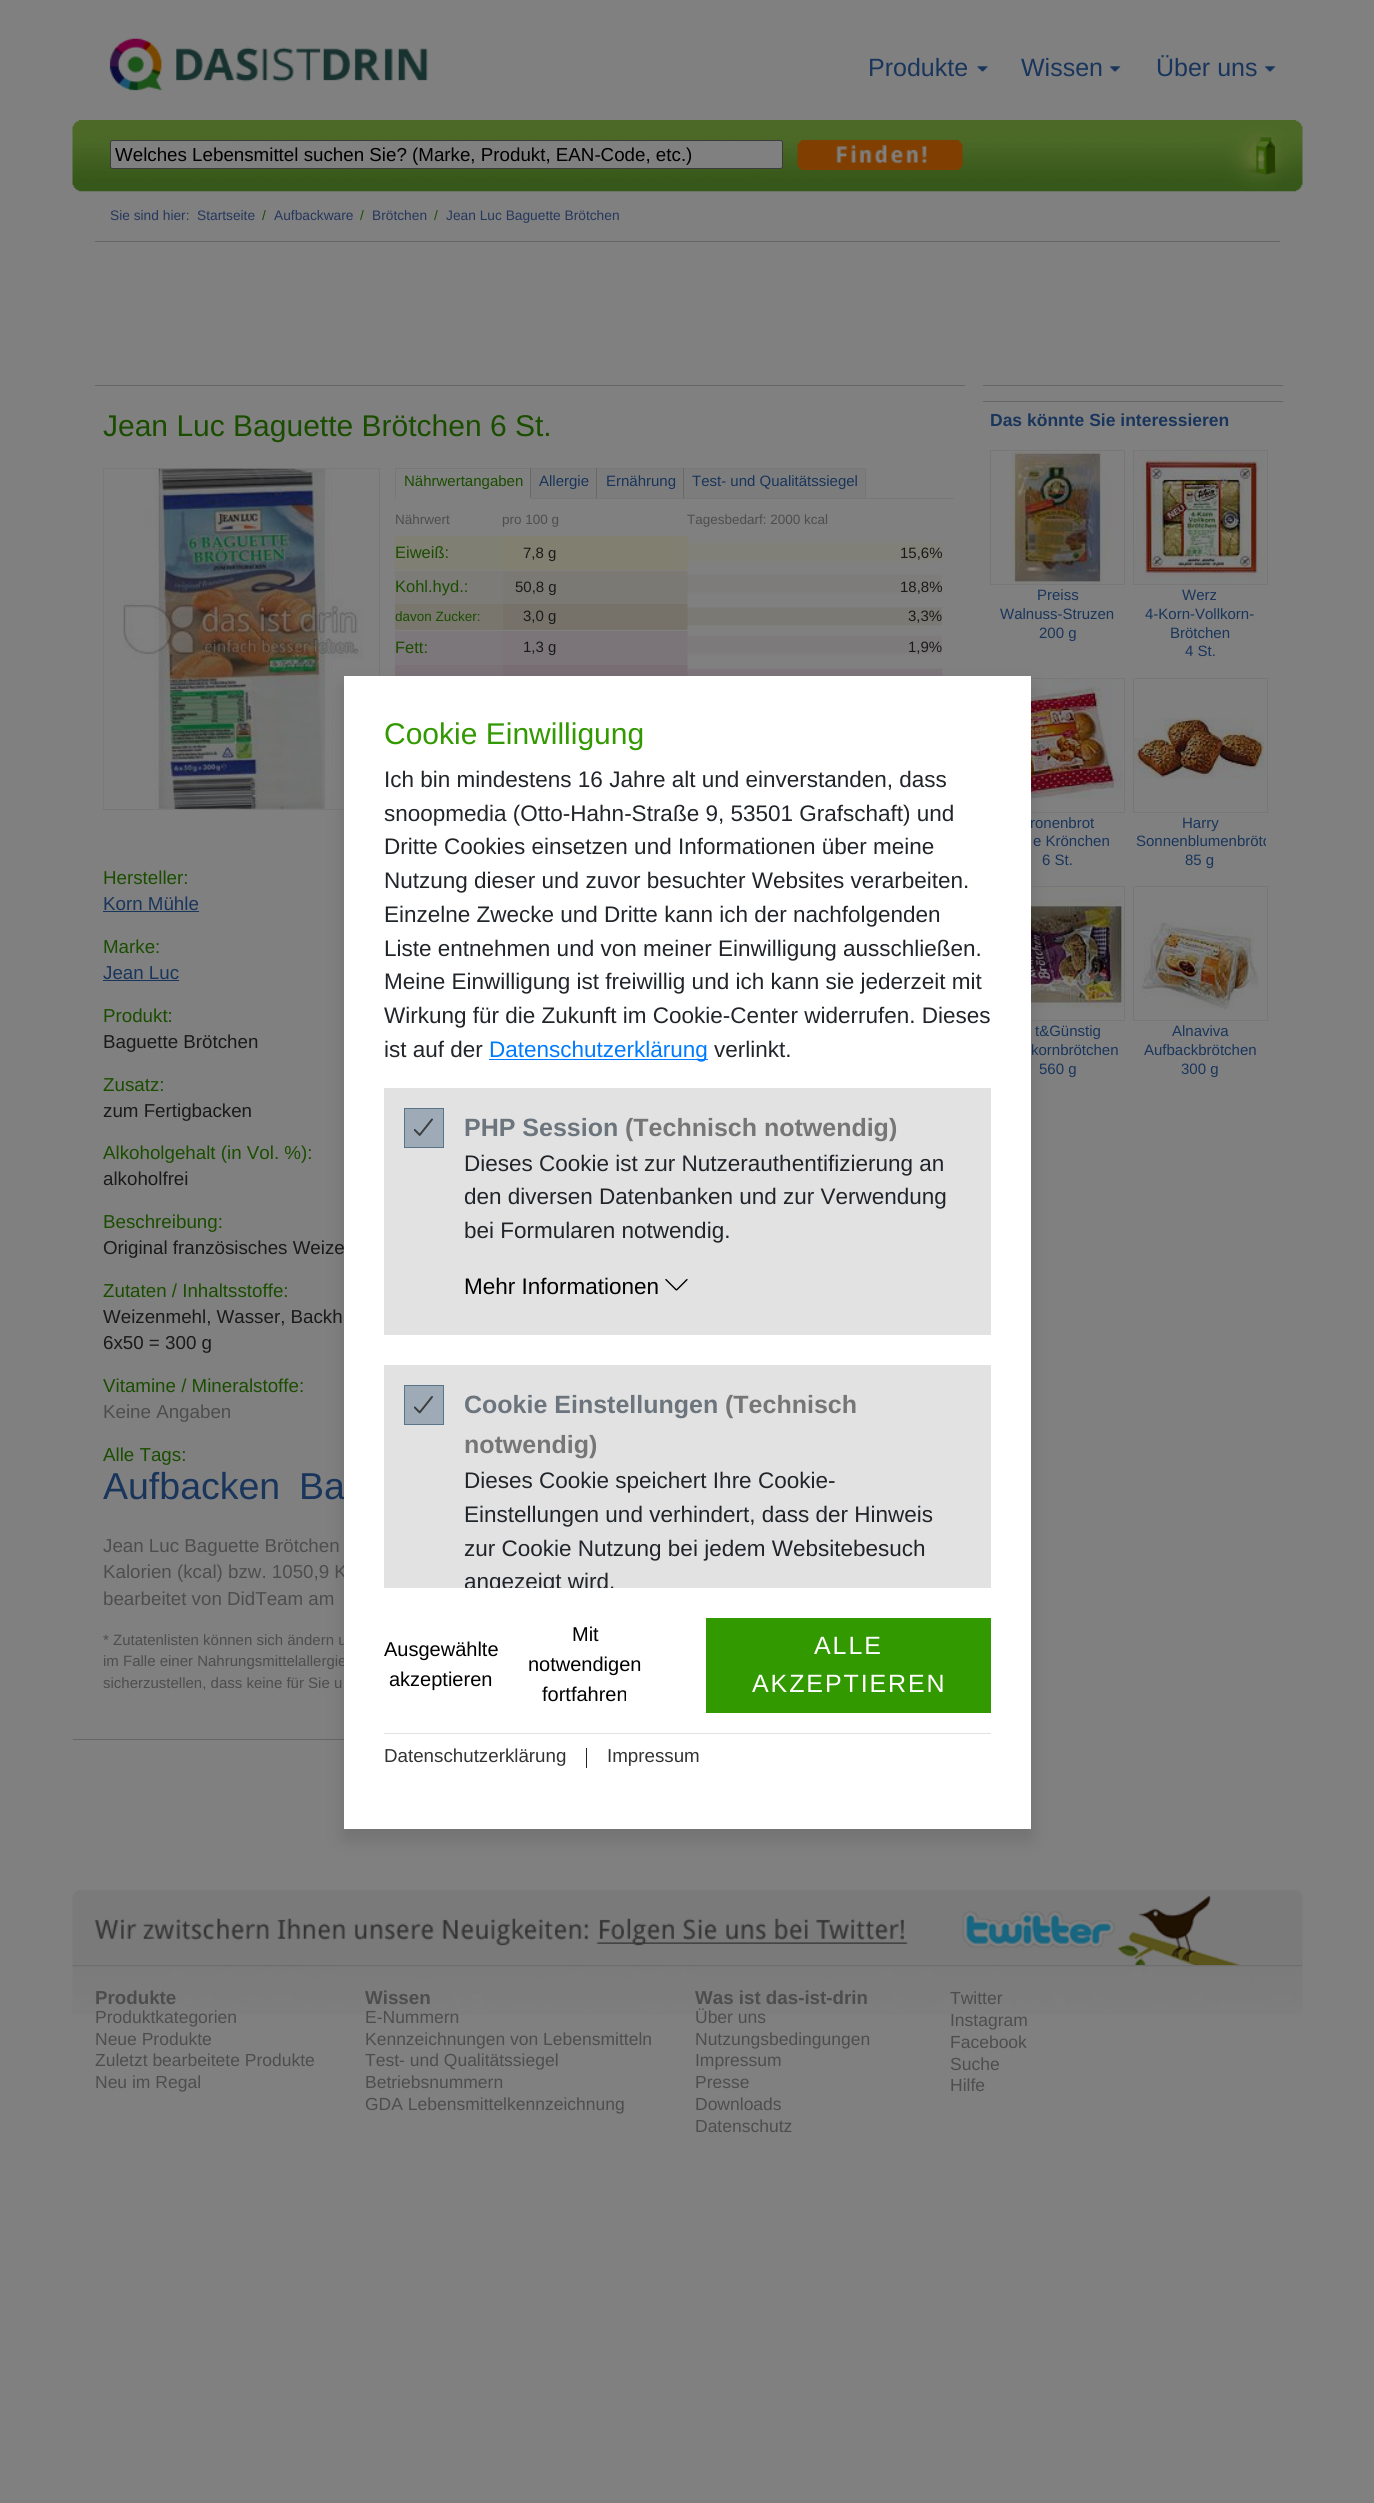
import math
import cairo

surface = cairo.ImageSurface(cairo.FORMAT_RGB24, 1374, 2503)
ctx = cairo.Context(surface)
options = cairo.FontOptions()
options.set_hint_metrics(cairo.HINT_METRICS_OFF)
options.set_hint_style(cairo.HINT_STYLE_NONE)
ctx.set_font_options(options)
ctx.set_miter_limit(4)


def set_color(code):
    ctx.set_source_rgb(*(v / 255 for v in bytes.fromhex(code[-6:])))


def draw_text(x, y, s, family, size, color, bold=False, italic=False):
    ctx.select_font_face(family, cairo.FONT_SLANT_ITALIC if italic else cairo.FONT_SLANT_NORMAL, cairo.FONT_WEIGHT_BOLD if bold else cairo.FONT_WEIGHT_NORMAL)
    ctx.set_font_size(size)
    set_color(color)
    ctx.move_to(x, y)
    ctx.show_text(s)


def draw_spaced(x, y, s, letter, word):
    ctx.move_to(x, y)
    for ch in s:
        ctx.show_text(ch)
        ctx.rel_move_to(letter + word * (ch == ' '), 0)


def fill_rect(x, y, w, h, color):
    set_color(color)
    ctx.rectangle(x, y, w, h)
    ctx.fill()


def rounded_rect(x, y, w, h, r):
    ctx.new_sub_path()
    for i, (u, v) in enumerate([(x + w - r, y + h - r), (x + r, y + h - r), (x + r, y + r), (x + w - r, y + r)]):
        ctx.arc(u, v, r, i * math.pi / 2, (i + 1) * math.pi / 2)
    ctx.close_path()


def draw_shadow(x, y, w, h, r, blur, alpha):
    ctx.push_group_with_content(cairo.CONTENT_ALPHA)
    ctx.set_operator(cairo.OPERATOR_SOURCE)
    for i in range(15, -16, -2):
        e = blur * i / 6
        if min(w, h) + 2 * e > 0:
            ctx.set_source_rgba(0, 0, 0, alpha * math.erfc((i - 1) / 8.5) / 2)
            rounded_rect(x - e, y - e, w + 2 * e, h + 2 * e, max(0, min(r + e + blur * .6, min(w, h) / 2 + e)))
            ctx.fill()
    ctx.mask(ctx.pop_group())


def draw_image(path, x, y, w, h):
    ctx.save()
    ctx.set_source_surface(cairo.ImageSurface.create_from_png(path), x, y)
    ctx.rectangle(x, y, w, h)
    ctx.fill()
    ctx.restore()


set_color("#808080")
ctx.paint()
draw_image("assets/img1.png", 109, 38, 319, 53)
draw_text(868, 76, "Produkte", "Liberation Sans", 25, "#19355b")
draw_image("assets/img2.png", 977, 66, 11, 6)
draw_text(1021, 76, "Wissen", "Liberation Sans", 25, "#19355b")
draw_image("assets/img3.png", 1109, 66, 12, 6)
draw_text(1156, 76, "Über uns", "Liberation Sans", 25, "#19355b")
draw_image("assets/img4.png", 1264, 66, 12, 6)
draw_image("assets/img5.png", 72, 120, 1231, 72)
set_color("#808080")
rounded_rect(110.5, 140.5, 672, 28, 2)
ctx.fill_preserve()
set_color("#3b3b3b")
ctx.set_line_width(1)
ctx.stroke()
draw_text(115, 161, "Welches Lebensmittel suchen Sie? (Marke, Produkt, EAN-Code, etc.)", "Liberation Sans", 18.75, "#000000")
draw_image("assets/img6.png", 797, 140, 166, 30)
draw_text(110, 220, "Sie sind hier:", "Liberation Sans", 13.75, "#25375c")
draw_text(197, 220, "Startseite", "Liberation Sans", 13.75, "#25375c")
draw_text(262, 220, "/", "Liberation Sans", 13.75, "#1a4d00")
draw_text(274, 220, "Aufbackware", "Liberation Sans", 13.75, "#25375c")
draw_text(360, 220, "/", "Liberation Sans", 13.75, "#1a4d00")
draw_text(372, 220, "Brötchen", "Liberation Sans", 13.75, "#25375c")
draw_text(434, 220, "/", "Liberation Sans", 13.75, "#1a4d00")
draw_text(446, 220, "Jean Luc Baguette Brötchen", "Liberation Sans", 13.75, "#25375c")
fill_rect(95, 241, 1185, 1, "#666666")
fill_rect(95, 385, 870, 1, "#666666")
draw_text(103, 436, "Jean Luc Baguette Brötchen 6 St.", "Liberation Sans", 30, "#1a4d00")
ctx.rectangle(103.5, 468.5, 276, 341)
set_color("#777777")
ctx.stroke()
draw_image("assets/img7.png", 103, 468, 275, 341)
fill_rect(866, 498, 88, 1, "#777777")
fill_rect(395, 468, 1, 31, "#777777")
fill_rect(396, 468, 470, 1, "#777777")
fill_rect(530, 468, 1, 31, "#686868")
fill_rect(530, 498, 1, 1, "#808080")
draw_text(404, 486, "Nährwertangaben", "Liberation Sans", 15, "#1a4d00")
fill_rect(531, 469, 152, 29, "#7c7c7c")
fill_rect(596, 468, 1, 31, "#686868")
fill_rect(531, 498, 67, 1, "#777777")
draw_text(539, 486, "Allergie", "Liberation Sans", 15, "#19355b")
fill_rect(683, 468, 1, 31, "#686868")
fill_rect(598, 498, 86, 1, "#777777")
draw_text(606, 486, "Ernährung", "Liberation Sans", 15, "#19355b")
fill_rect(684, 469, 181, 29, "#7c7c7c")
fill_rect(865, 468, 1, 31, "#777777")
fill_rect(684, 498, 182, 1, "#777777")
draw_text(692, 486, "Test- und Qualitätssiegel", "Liberation Sans", 15, "#19355b")
draw_text(395, 524, "Nährwert", "Liberation Sans", 13.5, "#4d4d4d")
draw_text(502, 524, "pro 100 g", "Liberation Sans", 13.5, "#4d4d4d")
draw_text(687, 524, "Tagesbedarf: 2000 kcal", "Liberation Sans", 13.5, "#4d4d4d")
fill_rect(395, 536, 108, 34, "#807f74")
draw_text(395, 558, "Eiweiß:", "Liberation Sans", 16.5, "#1a4d00")
fill_rect(503, 536, 185, 34, "#807f70")
draw_text(523, 558, "7,8 g", "Liberation Sans", 15, "#1a1a1a")
draw_image("assets/img8.png", 687, 536, 256, 34)
draw_text(900, 558, "15,6%", "Liberation Sans", 15, "#1a1a1a")
fill_rect(395, 571, 108, 33, "#7c7b77")
draw_text(395, 592, "Kohl.hyd.:", "Liberation Sans", 16.5, "#1a4d00")
fill_rect(503, 571, 185, 33, "#7b7974")
draw_text(515, 592, "50,8 g", "Liberation Sans", 15, "#1a1a1a")
draw_image("assets/img9.png", 687, 571, 255, 33)
draw_text(900, 592, "18,8%", "Liberation Sans", 15, "#1a1a1a")
fill_rect(395, 604, 108, 26, "#79766e")
draw_text(395, 621, "davon Zucker:", "Liberation Sans", 13.5, "#1a4d00")
fill_rect(503, 604, 185, 26, "#767269")
draw_text(523, 621, "3,0 g", "Liberation Sans", 15, "#1a1a1a")
draw_image("assets/img10.png", 687, 604, 256, 26)
draw_text(908, 621, "3,3%", "Liberation Sans", 15, "#1a1a1a")
fill_rect(395, 631, 108, 34, "#7c777a")
draw_text(395, 653, "Fett:", "Liberation Sans", 16.5, "#1a4d00")
fill_rect(503, 631, 185, 34, "#7b7479")
draw_text(523, 652, "1,3 g", "Liberation Sans", 15, "#1a1a1a")
draw_image("assets/img11.png", 687, 631, 255, 34)
draw_text(908, 652, "1,9%", "Liberation Sans", 15, "#1a1a1a")
fill_rect(395, 665, 108, 11, "#7a7177")
fill_rect(503, 665, 185, 11, "#786d73")
draw_image("assets/img12.png", 687, 665, 256, 11)
draw_text(103, 884, "Hersteller:", "Liberation Sans", 18.75, "#1a4d00")
draw_text(103, 910, "Korn Mühle", "Liberation Sans", 18.75, "#19355b")
fill_rect(103, 911, 96, 1, "#19355b")
draw_text(103, 953, "Marke:", "Liberation Sans", 18.75, "#1a4d00")
draw_text(103, 979, "Jean Luc", "Liberation Sans", 18.75, "#19355b")
fill_rect(103, 980, 76, 1, "#19355b")
draw_text(103, 1022, "Produkt:", "Liberation Sans", 18.75, "#1a4d00")
draw_text(103, 1048, "Baguette Brötchen", "Liberation Sans", 18.75, "#1a1a1a")
draw_text(103, 1091, "Zusatz:", "Liberation Sans", 18.75, "#1a4d00")
draw_text(103, 1117, "zum Fertigbacken", "Liberation Sans", 18.75, "#1a1a1a")
draw_text(103, 1159, "Alkoholgehalt (in Vol. %):", "Liberation Sans", 18.75, "#1a4d00")
draw_text(103, 1185, "alkoholfrei", "Liberation Sans", 18.75, "#1a1a1a")
draw_text(103, 1228, "Beschreibung:", "Liberation Sans", 18.75, "#1a4d00")
draw_text(103, 1254, "Original französisches Weize", "Liberation Sans", 18.75, "#1a1a1a")
draw_text(103, 1297, "Zutaten / Inhaltsstoffe:", "Liberation Sans", 18.75, "#1a4d00")
draw_text(103, 1323, "Weizenmehl, Wasser, Backh", "Liberation Sans", 18.75, "#1a1a1a")
draw_text(103, 1349, "6x50 = 300 g", "Liberation Sans", 18.75, "#1a1a1a")
draw_text(103, 1392, "Vitamine / Mineralstoffe:", "Liberation Sans", 18.75, "#1a4d00")
draw_text(103, 1418, "Keine Angaben", "Liberation Sans", 18.75, "#4d4d4d")
draw_text(103, 1461, "Alle Tags:", "Liberation Sans", 18.75, "#1a4d00")
draw_text(103, 1499, "Aufbacken", "Liberation Sans", 37.5, "#19355b")
draw_text(299, 1499, "Ba", "Liberation Sans", 37.5, "#19355b")
draw_text(103, 1552, "Jean Luc Baguette Brötchen", "Liberation Sans", 18.75, "#4d4d4d")
draw_text(103, 1578, "Kalorien (kcal) bzw. 1050,9 K", "Liberation Sans", 18.75, "#4d4d4d")
draw_text(103, 1605, "bearbeitet von DidTeam am", "Liberation Sans", 18.75, "#4d4d4d")
draw_text(103, 1645, "* Zutatenlisten können sich ändern u", "Liberation Sans", 15, "#4d4d4d")
draw_text(103, 1666, "im Falle einer Nahrungsmittelallergie", "Liberation Sans", 15, "#4d4d4d")
draw_text(103, 1688, "sicherzustellen, dass keine für Sie u", "Liberation Sans", 15, "#4d4d4d")
fill_rect(73, 1739, 271, 1, "#666666")
fill_rect(983, 385, 300, 1, "#666666")
fill_rect(983, 401, 300, 1, "#666666")
draw_text(990, 426, "Das könnte Sie interessieren", "Liberation Sans", 17.5, "#19355b", bold=True)
ctx.rectangle(990.5, 450.5, 134, 134)
set_color("#777777")
ctx.stroke()
draw_image("assets/img13.png", 1011, 451, 100, 133)
draw_text(1037, 600, "Preiss", "Liberation Sans", 15, "#19355b")
draw_text(1000, 619, "Walnuss-Struzen", "Liberation Sans", 15, "#19355b")
draw_text(1039, 638, "200 g", "Liberation Sans", 15, "#19355b")
ctx.rectangle(1133.5, 450.5, 134, 134)
set_color("#777777")
ctx.stroke()
draw_image("assets/img14.png", 1134, 451, 132, 132)
draw_text(1182, 600, "Werz", "Liberation Sans", 15, "#19355b")
draw_text(1145, 619, "4-Korn-Vollkorn-", "Liberation Sans", 15, "#19355b")
draw_text(1170, 638, "Brötchen", "Liberation Sans", 15, "#19355b")
draw_text(1185, 656, "4 St.", "Liberation Sans", 15, "#19355b")
ctx.rectangle(990.5, 678.5, 134, 134)
set_color("#777777")
ctx.stroke()
draw_image("assets/img15.png", 1031, 679, 92, 125)
draw_text(1030, 828, "ronenbrot", "Liberation Sans", 15, "#19355b")
draw_text(1033, 846, "e Krönchen", "Liberation Sans", 15, "#19355b")
draw_text(1042, 865, "6 St.", "Liberation Sans", 15, "#19355b")
ctx.rectangle(1133.5, 678.5, 134, 134)
set_color("#777777")
ctx.stroke()
draw_image("assets/img16.png", 1134, 717, 132, 62)
draw_text(1182, 828, "Harry", "Liberation Sans", 15, "#19355b")
ctx.save()
ctx.rectangle(1134, 679, 132, 199)
ctx.clip()
draw_text(1136, 846, "Sonnenblumenbrötc", "Liberation Sans", 15, "#19355b")
ctx.restore()
draw_text(1185, 865, "85 g", "Liberation Sans", 15, "#19355b")
ctx.rectangle(990.5, 886.5, 134, 134)
set_color("#777777")
ctx.stroke()
draw_image("assets/img17.png", 1031, 888, 93, 120)
draw_text(1035, 1036, "t&Günstig", "Liberation Sans", 15, "#19355b")
draw_text(1031, 1055, "kornbrötchen", "Liberation Sans", 15, "#19355b")
draw_text(1039, 1074, "560 g", "Liberation Sans", 15, "#19355b")
ctx.rectangle(1133.5, 886.5, 134, 134)
set_color("#777777")
ctx.stroke()
draw_image("assets/img18.png", 1141, 922, 118, 88)
draw_text(1172, 1036, "Alnaviva", "Liberation Sans", 15, "#19355b")
draw_text(1144, 1055, "Aufbackbrötchen", "Liberation Sans", 15, "#19355b")
draw_text(1181, 1074, "300 g", "Liberation Sans", 15, "#19355b")
draw_image("assets/img19.png", 72, 1890, 1231, 75)
draw_image("assets/img20.png", 72, 1965, 1231, 50)
draw_text(95, 2004, "Produkte", "Liberation Sans", 18.75, "#4d4d4d", bold=True)
draw_text(95, 2023, "Produktkategorien", "Liberation Sans", 17.5, "#4d4d4d")
draw_text(95, 2045, "Neue Produkte", "Liberation Sans", 17.5, "#4d4d4d")
draw_text(95, 2066, "Zuletzt bearbeitete Produkte", "Liberation Sans", 17.5, "#4d4d4d")
draw_text(95, 2088, "Neu im Regal", "Liberation Sans", 17.5, "#4d4d4d")
draw_text(365, 2004, "Wissen", "Liberation Sans", 18.75, "#4d4d4d", bold=True)
draw_text(365, 2023, "E-Nummern", "Liberation Sans", 17.5, "#4d4d4d")
draw_text(365, 2045, "Kennzeichnungen von Lebensmitteln", "Liberation Sans", 17.5, "#4d4d4d")
draw_text(365, 2066, "Test- und Qualitätssiegel", "Liberation Sans", 17.5, "#4d4d4d")
draw_text(365, 2088, "Betriebsnummern", "Liberation Sans", 17.5, "#4d4d4d")
draw_text(365, 2110, "GDA Lebensmittelkennzeichnung", "Liberation Sans", 17.5, "#4d4d4d")
draw_text(695, 2004, "Was ist das-ist-drin", "Liberation Sans", 18.75, "#4d4d4d", bold=True)
draw_text(695, 2023, "Über uns", "Liberation Sans", 17.5, "#4d4d4d")
draw_text(695, 2045, "Nutzungsbedingungen", "Liberation Sans", 17.5, "#4d4d4d")
draw_text(695, 2066, "Impressum", "Liberation Sans", 17.5, "#4d4d4d")
draw_text(695, 2088, "Presse", "Liberation Sans", 17.5, "#4d4d4d")
draw_text(695, 2110, "Downloads", "Liberation Sans", 17.5, "#4d4d4d")
draw_text(695, 2132, "Datenschutz", "Liberation Sans", 17.5, "#4d4d4d")
draw_text(950, 2004, "Twitter", "Liberation Sans", 17.5, "#4d4d4d")
draw_text(950, 2026, "Instagram", "Liberation Sans", 17.5, "#4d4d4d")
draw_text(950, 2048, "Facebook", "Liberation Sans", 17.5, "#4d4d4d")
draw_text(950, 2070, "Suche", "Liberation Sans", 17.5, "#4d4d4d")
draw_text(950, 2091, "Hilfe", "Liberation Sans", 17.5, "#4d4d4d")
set_color("#000000")
draw_shadow(344, 686, 687, 1153, 0, 10, 0.12)
fill_rect(344, 676, 687, 1153, "#ffffff")
draw_text(384, 744, "Cookie Einwilligung", "Liberation Sans", 30, "#339900")
draw_text(384, 787, "Ich bin mindestens 16 Jahre alt und einverstanden, dass", "Liberation Sans", 22.5, "#212529")
draw_text(384, 821, "snoopmedia (Otto-Hahn-Straße 9, 53501 Grafschaft) und", "Liberation Sans", 22.5, "#212529")
draw_text(384, 854, "Dritte Cookies einsetzen und Informationen über meine", "Liberation Sans", 22.5, "#212529")
draw_text(384, 888, "Nutzung dieser und zuvor besuchter Websites verarbeiten.", "Liberation Sans", 22.5, "#212529")
draw_text(384, 922, "Einzelne Zwecke und Dritte kann ich der nachfolgenden", "Liberation Sans", 22.5, "#212529")
draw_text(384, 956, "Liste entnehmen und von meiner Einwilligung ausschließen.", "Liberation Sans", 22.5, "#212529")
draw_text(384, 989, "Meine Einwilligung ist freiwillig und ich kann sie jederzeit mit", "Liberation Sans", 22.5, "#212529")
draw_text(384, 1023, "Wirkung für die Zukunft im Cookie-Center widerrufen. Dieses", "Liberation Sans", 22.5, "#212529")
draw_text(384, 1057, "ist auf der", "Liberation Sans", 22.5, "#212529")
fill_rect(489, 1059, 219, 1, "#007bff")
draw_text(489, 1057, "Datenschutzerklärung", "Liberation Sans", 22.5, "#007bff")
draw_text(714, 1057, "verlinkt.", "Liberation Sans", 22.5, "#212529")
fill_rect(384, 1088, 607, 247, "#e2e2e2")
set_color("#9eabb6")
ctx.rectangle(404.5, 1108.5, 39, 39)
ctx.fill_preserve()
set_color("#5a7489")
ctx.stroke()
draw_text(464, 1136, "PHP Session", "Liberation Sans", 25, "#6c757d", bold=True)
draw_text(625, 1136, "(Technisch notwendig)", "Liberation Sans", 25, "#767676", bold=True)
draw_image("assets/img21.png", 414, 1118, 19, 18)
draw_text(464, 1171, "Dieses Cookie ist zur Nutzerauthentifizierung an", "Liberation Sans", 22.5, "#212529")
draw_text(464, 1204, "den diversen Datenbanken und zur Verwendung", "Liberation Sans", 22.5, "#212529")
draw_text(464, 1238, "bei Formularen notwendig.", "Liberation Sans", 22.5, "#212529")
draw_text(464, 1294, "Mehr Informationen", "Liberation Sans", 22.5, "#000000")
draw_image("assets/img22.png", 665, 1278, 23, 13)
fill_rect(384, 1365, 607, 223, "#e2e2e2")
set_color("#9eabb6")
ctx.rectangle(404.5, 1385.5, 39, 39)
ctx.fill_preserve()
set_color("#5a7489")
ctx.stroke()
draw_text(464, 1413, "Cookie Einstellungen", "Liberation Sans", 25, "#6c757d", bold=True)
draw_text(725, 1413, "(Technisch", "Liberation Sans", 25, "#767676", bold=True)
draw_text(464, 1453, "notwendig)", "Liberation Sans", 25, "#767676", bold=True)
draw_image("assets/img23.png", 414, 1396, 19, 18)
draw_text(464, 1488, "Dieses Cookie speichert Ihre Cookie-", "Liberation Sans", 22.5, "#212529")
draw_text(464, 1522, "Einstellungen und verhindert, dass der Hinweis", "Liberation Sans", 22.5, "#212529")
draw_text(464, 1556, "zur Cookie Nutzung bei jedem Websitebesuch", "Liberation Sans", 22.5, "#212529")
ctx.save()
ctx.rectangle(384, 1088, 607, 500)
ctx.clip()
draw_text(464, 1589, "angezeigt wird.", "Liberation Sans", 22.5, "#212529")
ctx.restore()
draw_text(384, 1656, "Ausgewählte", "Liberation Sans", 20, "#000000")
draw_text(389, 1686, "akzeptieren", "Liberation Sans", 20, "#000000")
draw_text(572, 1641, "Mit", "Liberation Sans", 20, "#000000")
draw_text(528, 1671, "notwendigen", "Liberation Sans", 20, "#000000")
draw_text(542, 1701, "fortfahren", "Liberation Sans", 20, "#000000")
fill_rect(706, 1618, 285, 95, "#339900")
ctx.set_font_size(25)
set_color("#ffffff")
draw_spaced(814, 1654, "ALLE", 1.9, 0)
draw_spaced(752, 1692, "AKZEPTIEREN", 1.9, 0)
fill_rect(384, 1733, 607, 1, "#e2e2e2")
draw_text(384, 1762, "Datenschutzerklärung", "Liberation Sans", 18.75, "#333333")
fill_rect(586, 1748, 1, 20, "#212529")
draw_text(607, 1762, "Impressum", "Liberation Sans", 18.75, "#333333")
surface.write_to_png("output.png")
